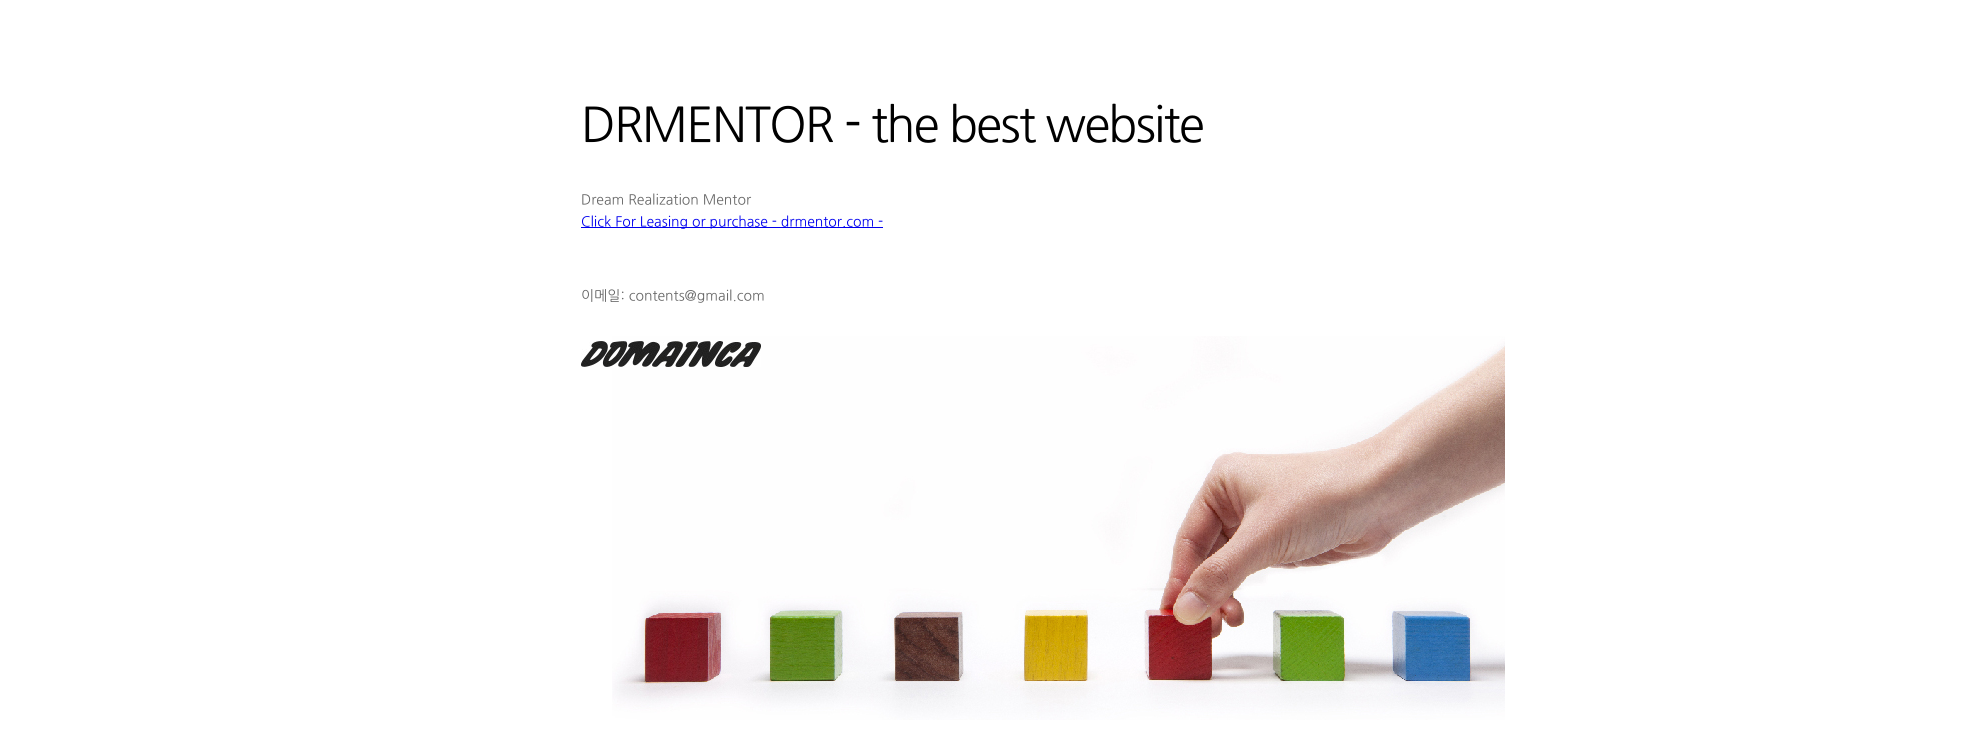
import math
import cairo

surface = cairo.ImageSurface(cairo.FORMAT_RGB24, 1986, 748)
ctx = cairo.Context(surface)
options = cairo.FontOptions()
options.set_hint_metrics(cairo.HINT_METRICS_OFF)
options.set_hint_style(cairo.HINT_STYLE_NONE)
ctx.set_font_options(options)
ctx.set_miter_limit(4)


def set_color(code):
    ctx.set_source_rgb(*(v / 255 for v in bytes.fromhex(code[-6:])))


def draw_text(x, y, s, family, size, color, bold=False, italic=False):
    ctx.select_font_face(family, cairo.FONT_SLANT_ITALIC if italic else cairo.FONT_SLANT_NORMAL, cairo.FONT_WEIGHT_BOLD if bold else cairo.FONT_WEIGHT_NORMAL)
    ctx.set_font_size(size)
    set_color(color)
    ctx.move_to(x, y)
    ctx.show_text(s)


def draw_spaced(x, y, s, letter, word):
    ctx.move_to(x, y)
    for ch in s:
        ctx.show_text(ch)
        ctx.rel_move_to(letter + word * (ch == ' '), 0)


def fill_rect(x, y, w, h, color):
    set_color(color)
    ctx.rectangle(x, y, w, h)
    ctx.fill()


def draw_image(path, x, y, w, h):
    ctx.save()
    ctx.set_source_surface(cairo.ImageSurface.create_from_png(path), x, y)
    ctx.rectangle(x, y, w, h)
    ctx.fill()
    ctx.restore()


set_color("#ffffff")
ctx.paint()
draw_image("assets/img1.png", 612, 336, 893, 384)
ctx.select_font_face("NanumGothic")
ctx.set_font_size(48)
set_color("#000000")
draw_spaced(581, 140, "DRMENTOR - the best website", -2, 0)
draw_text(581, 204, "Dream Realization Mentor", "NanumGothic", 14, "#666666")
fill_rect(581, 227, 302, 1, "#0000ee")
draw_text(581, 226, "Click For Leasing or purchase - drmentor.com -", "NanumGothic", 14, "#0000ee")
draw_text(581, 300, "이메일: contents@gmail.com", "NanumGothic", 14, "#666666")
draw_image("assets/img2.png", 581, 341, 180, 26)
surface.write_to_png("output.png")
